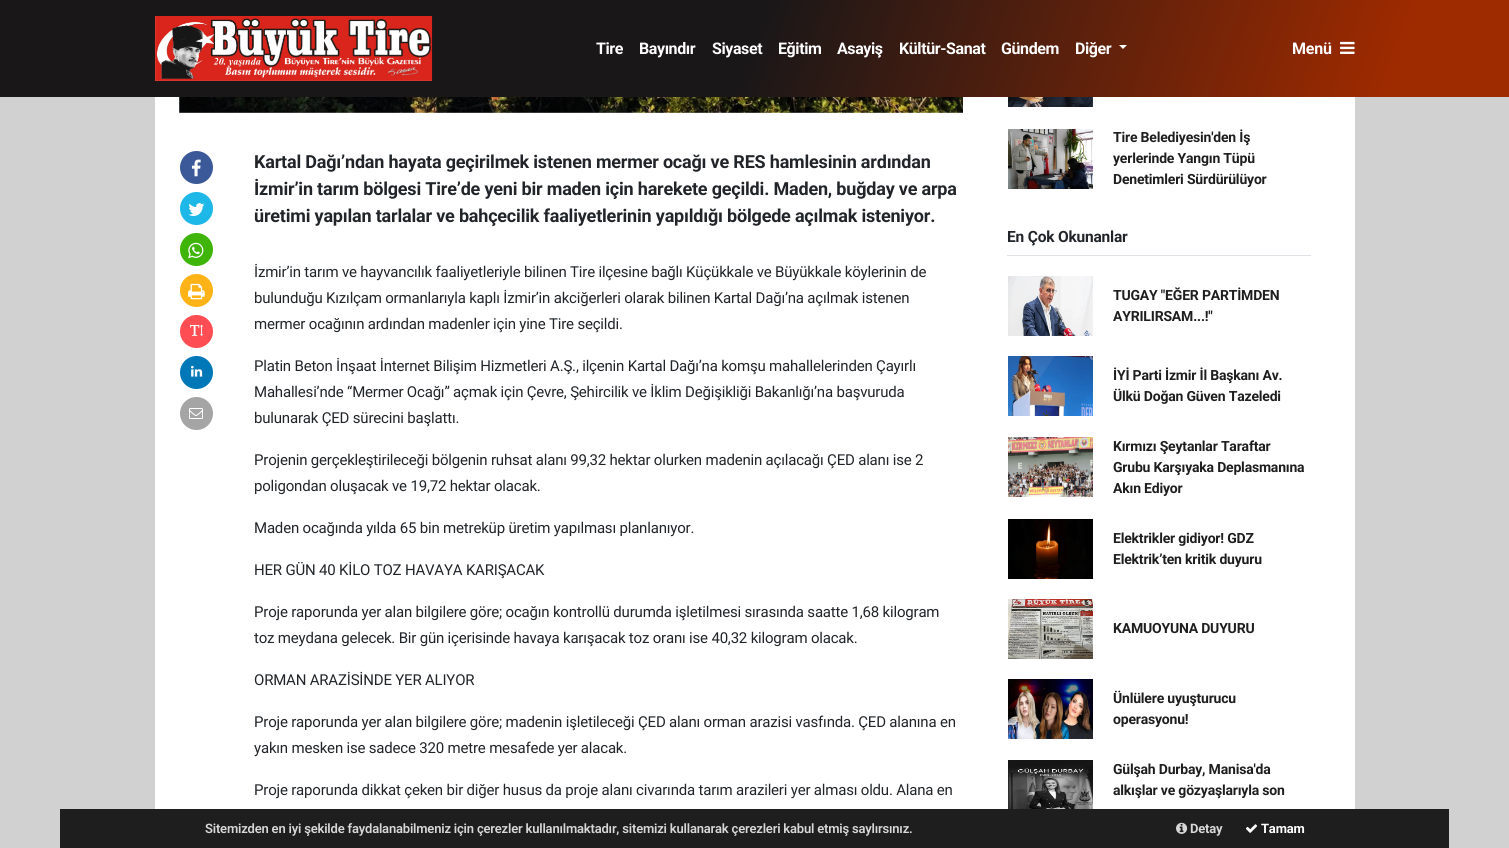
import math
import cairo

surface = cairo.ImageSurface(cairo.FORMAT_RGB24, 1509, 848)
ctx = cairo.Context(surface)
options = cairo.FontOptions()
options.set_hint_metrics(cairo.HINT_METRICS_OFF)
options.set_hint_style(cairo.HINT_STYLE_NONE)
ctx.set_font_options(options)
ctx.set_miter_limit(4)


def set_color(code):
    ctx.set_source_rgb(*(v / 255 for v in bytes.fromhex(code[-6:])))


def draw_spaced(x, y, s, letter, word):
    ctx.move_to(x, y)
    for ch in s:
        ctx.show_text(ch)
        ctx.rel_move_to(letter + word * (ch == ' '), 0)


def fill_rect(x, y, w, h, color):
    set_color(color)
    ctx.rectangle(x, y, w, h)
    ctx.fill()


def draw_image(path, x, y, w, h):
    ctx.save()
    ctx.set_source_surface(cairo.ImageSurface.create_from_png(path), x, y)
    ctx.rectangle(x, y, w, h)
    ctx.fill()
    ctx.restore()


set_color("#d1d1d1")
ctx.paint()
gradient = cairo.LinearGradient(70, -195, 1439, 292)
gradient.add_color_stop_rgba(0.5, 0.102, 0.09, 0.094, 1)
gradient.add_color_stop_rgba(0.92, 0.62, 0.165, 0, 1)
ctx.set_source(gradient)
ctx.rectangle(0, 0, 1509, 97)
ctx.fill()
draw_image("assets/img1.png", 154, 16, 279, 65)
ctx.select_font_face("Roboto", cairo.FONT_SLANT_NORMAL, cairo.FONT_WEIGHT_BOLD)
ctx.set_font_size(16)
set_color("#ffffff")
draw_spaced(596, 54, "Tire", -0.4, 0)
draw_spaced(639, 54, "Bayındır", -0.4, 0)
draw_spaced(712, 54, "Siyaset", -0.4, 0)
draw_spaced(778, 54, "Eğitim", -0.4, 0)
draw_spaced(837, 54, "Asayiş", -0.4, 0)
draw_spaced(899, 54, "Kültür-Sanat", -0.4, 0)
draw_spaced(1001, 54, "Gündem", -0.4, 0)
draw_spaced(1075, 54, "Diğer", -0.4, 0)
ctx.new_path()
ctx.move_to(1119, 45)
ctx.line_to(1127, 45)
ctx.line_to(1123, 49)
ctx.close_path()
ctx.fill()
draw_spaced(1292, 54, "Menü", -0.19, 0)
draw_image("assets/img2.png", 1340, 41, 15, 13)
fill_rect(155, 97, 1200, 712, "#ffffff")
draw_image("assets/img3.png", 179, 97, 784, 16)
set_color("#3b5998")
ctx.arc(196.5, 167.5, 16.5, 0, 2 * math.pi)
ctx.fill()
draw_image("assets/img4.png", 191, 159, 10, 18)
set_color("#1db7e8")
ctx.arc(196.5, 208.5, 16.5, 0, 2 * math.pi)
ctx.fill()
draw_image("assets/img5.png", 188, 203, 17, 13)
set_color("#3fb509")
ctx.arc(196.5, 249.5, 16.5, 0, 2 * math.pi)
ctx.fill()
draw_image("assets/img6.png", 188, 242, 16, 17)
set_color("#ffb316")
ctx.arc(196.5, 290.5, 16.5, 0, 2 * math.pi)
ctx.fill()
draw_image("assets/img7.png", 188, 283, 17, 17)
set_color("#ff4d54")
ctx.arc(196.5, 331.5, 16.5, 0, 2 * math.pi)
ctx.fill()
draw_image("assets/img8.png", 190, 324, 13, 12)
set_color("#0077b7")
ctx.arc(196.5, 372.5, 16.5, 0, 2 * math.pi)
ctx.fill()
draw_image("assets/img9.png", 191, 365, 12, 12)
set_color("#a5a5a5")
ctx.arc(196.5, 413.5, 16.5, 0, 2 * math.pi)
ctx.fill()
draw_image("assets/img10.png", 189, 408, 14, 11)
ctx.set_font_size(18)
set_color("#212529")
draw_spaced(254, 168, "Kartal Dağı’ndan hayata geçirilmek istenen mermer ocağı ve RES hamlesinin ardından", -0.19, 0)
draw_spaced(254, 195, "İzmir’in tarım bölgesi Tire’de yeni bir maden için harekete geçildi. Maden, buğday ve arpa", -0.19, 0)
draw_spaced(254, 222, "üretimi yapılan tarlalar ve bahçecilik faaliyetlerinin yapıldığı bölgede açılmak isteniyor.", -0.19, 0)
ctx.select_font_face("Roboto")
ctx.set_font_size(15)
draw_spaced(254, 277, "İzmir’in tarım ve hayvancılık faaliyetleriyle bilinen Tire ilçesine bağlı Küçükkale ve Büyükkale köylerinin de", -0.19, 0)
draw_spaced(254, 303, "bulunduğu Kızılçam ormanlarıyla kaplı İzmir’in akciğerleri olarak bilinen Kartal Dağı’na açılmak istenen", -0.19, 0)
draw_spaced(254, 329, "mermer ocağının ardından madenler için yine Tire seçildi.", -0.19, 0)
draw_spaced(254, 371, "Platin Beton İnşaat İnternet Bilişim Hizmetleri A.Ş., ilçenin Kartal Dağı’na komşu mahallelerinden Çayırlı", -0.19, 0)
draw_spaced(254, 397, "Mahallesi’nde “Mermer Ocağı” açmak için Çevre, Şehircilik ve İklim Değişikliği Bakanlığı’na başvuruda", -0.19, 0)
draw_spaced(254, 423, "bulunarak ÇED sürecini başlattı.", -0.19, 0)
draw_spaced(254, 465, "Projenin gerçekleştirileceği bölgenin ruhsat alanı 99,32 hektar olurken madenin açılacağı ÇED alanı ise 2", -0.19, 0)
draw_spaced(254, 491, "poligondan oluşacak ve 19,72 hektar olacak.", -0.19, 0)
draw_spaced(254, 533, "Maden ocağında yılda 65 bin metreküp üretim yapılması planlanıyor.", -0.19, 0)
draw_spaced(254, 575, "HER GÜN 40 KİLO TOZ HAVAYA KARIŞACAK", -0.19, 0)
draw_spaced(254, 617, "Proje raporunda yer alan bilgilere göre; ocağın kontrollü durumda işletilmesi sırasında saatte 1,68 kilogram", -0.19, 0)
draw_spaced(254, 643, "toz meydana gelecek. Bir gün içerisinde havaya karışacak toz oranı ise 40,32 kilogram olacak.", -0.19, 0)
draw_spaced(254, 685, "ORMAN ARAZİSİNDE YER ALIYOR", -0.19, 0)
draw_spaced(254, 727, "Proje raporunda yer alan bilgilere göre; madenin işletileceği ÇED alanı orman arazisi vasfında. ÇED alanına en", -0.19, 0)
draw_spaced(254, 753, "yakın mesken ise sadece 320 metre mesafede yer alacak.", -0.19, 0)
draw_spaced(254, 795, "Proje raporunda dikkat çeken bir diğer husus da proje alanı civarında tarım arazileri yer alması oldu. Alana en", -0.19, 0)
draw_image("assets/img11.png", 1008, 97, 85, 10)
draw_image("assets/img12.png", 1008, 129, 85, 60)
ctx.select_font_face("Roboto", cairo.FONT_SLANT_NORMAL, cairo.FONT_WEIGHT_BOLD)
ctx.set_font_size(14)
set_color("#1e1e1e")
draw_spaced(1113, 142, "Tire Belediyesin'den İş", -0.19, 0)
draw_spaced(1113, 163, "yerlerinde Yangın Tüpü", -0.19, 0)
draw_spaced(1113, 184, "Denetimleri Sürdürülüyor", -0.19, 0)
fill_rect(1007, 255, 304, 1, "#dee2e6")
ctx.set_font_size(15.5)
set_color("#212529")
draw_spaced(1007, 242, "En Çok Okunanlar", -0.19, 0)
draw_image("assets/img13.png", 1008, 276, 85, 60)
ctx.set_font_size(14)
set_color("#1e1e1e")
draw_spaced(1113, 300, "TUGAY \"EĞER PARTİMDEN", -0.19, 0)
draw_spaced(1113, 321, "AYRILIRSAM...!\"", -0.19, 0)
draw_image("assets/img14.png", 1008, 356, 85, 60)
draw_spaced(1113, 380, "İYİ Parti İzmir İl Başkanı Av.", -0.19, 0)
draw_spaced(1113, 401, "Ülkü Doğan Güven Tazeledi", -0.19, 0)
draw_image("assets/img15.png", 1008, 437, 85, 60)
draw_spaced(1113, 451, "Kırmızı Şeytanlar Taraftar", -0.19, 0)
draw_spaced(1113, 472, "Grubu Karşıyaka Deplasmanına", -0.19, 0)
draw_spaced(1113, 493, "Akın Ediyor", -0.19, 0)
draw_image("assets/img16.png", 1008, 519, 85, 60)
draw_spaced(1113, 543, "Elektrikler gidiyor! GDZ", -0.19, 0)
draw_spaced(1113, 564, "Elektrik’ten kritik duyuru", -0.19, 0)
draw_image("assets/img17.png", 1008, 599, 85, 60)
draw_spaced(1113, 633, "KAMUOYUNA DUYURU", -0.19, 0)
draw_image("assets/img18.png", 1008, 679, 85, 60)
draw_spaced(1113, 703, "Ünlülere uyuşturucu", -0.19, 0)
draw_spaced(1113, 724, "operasyonu!", -0.19, 0)
draw_image("assets/img19.png", 1008, 760, 85, 49)
draw_spaced(1113, 774, "Gülşah Durbay, Manisa'da", -0.19, 0)
draw_spaced(1113, 795, "alkışlar ve gözyaşlarıyla son", -0.19, 0)
fill_rect(60, 809, 1389, 39, "#1e1e1e")
ctx.select_font_face("Roboto SemiBold")
ctx.set_font_size(13)
set_color("#d7d7d7")
draw_spaced(205, 833, "Sitemizden en iyi şekilde faydalanabilmeniz için çerezler kullanılmaktadır, sitemizi kullanarak çerezleri kabul etmiş saylırsınız.", -0.19, 0)
draw_image("assets/img20.png", 1176, 822, 12, 12)
ctx.select_font_face("Roboto", cairo.FONT_SLANT_NORMAL, cairo.FONT_WEIGHT_BOLD)
draw_spaced(1190, 833, "Detay", -0.19, 0)
draw_image("assets/img21.png", 1245, 824, 13, 9)
set_color("#ffffff")
draw_spaced(1261, 833, "Tamam", -0.19, 0)
surface.write_to_png("output.png")
